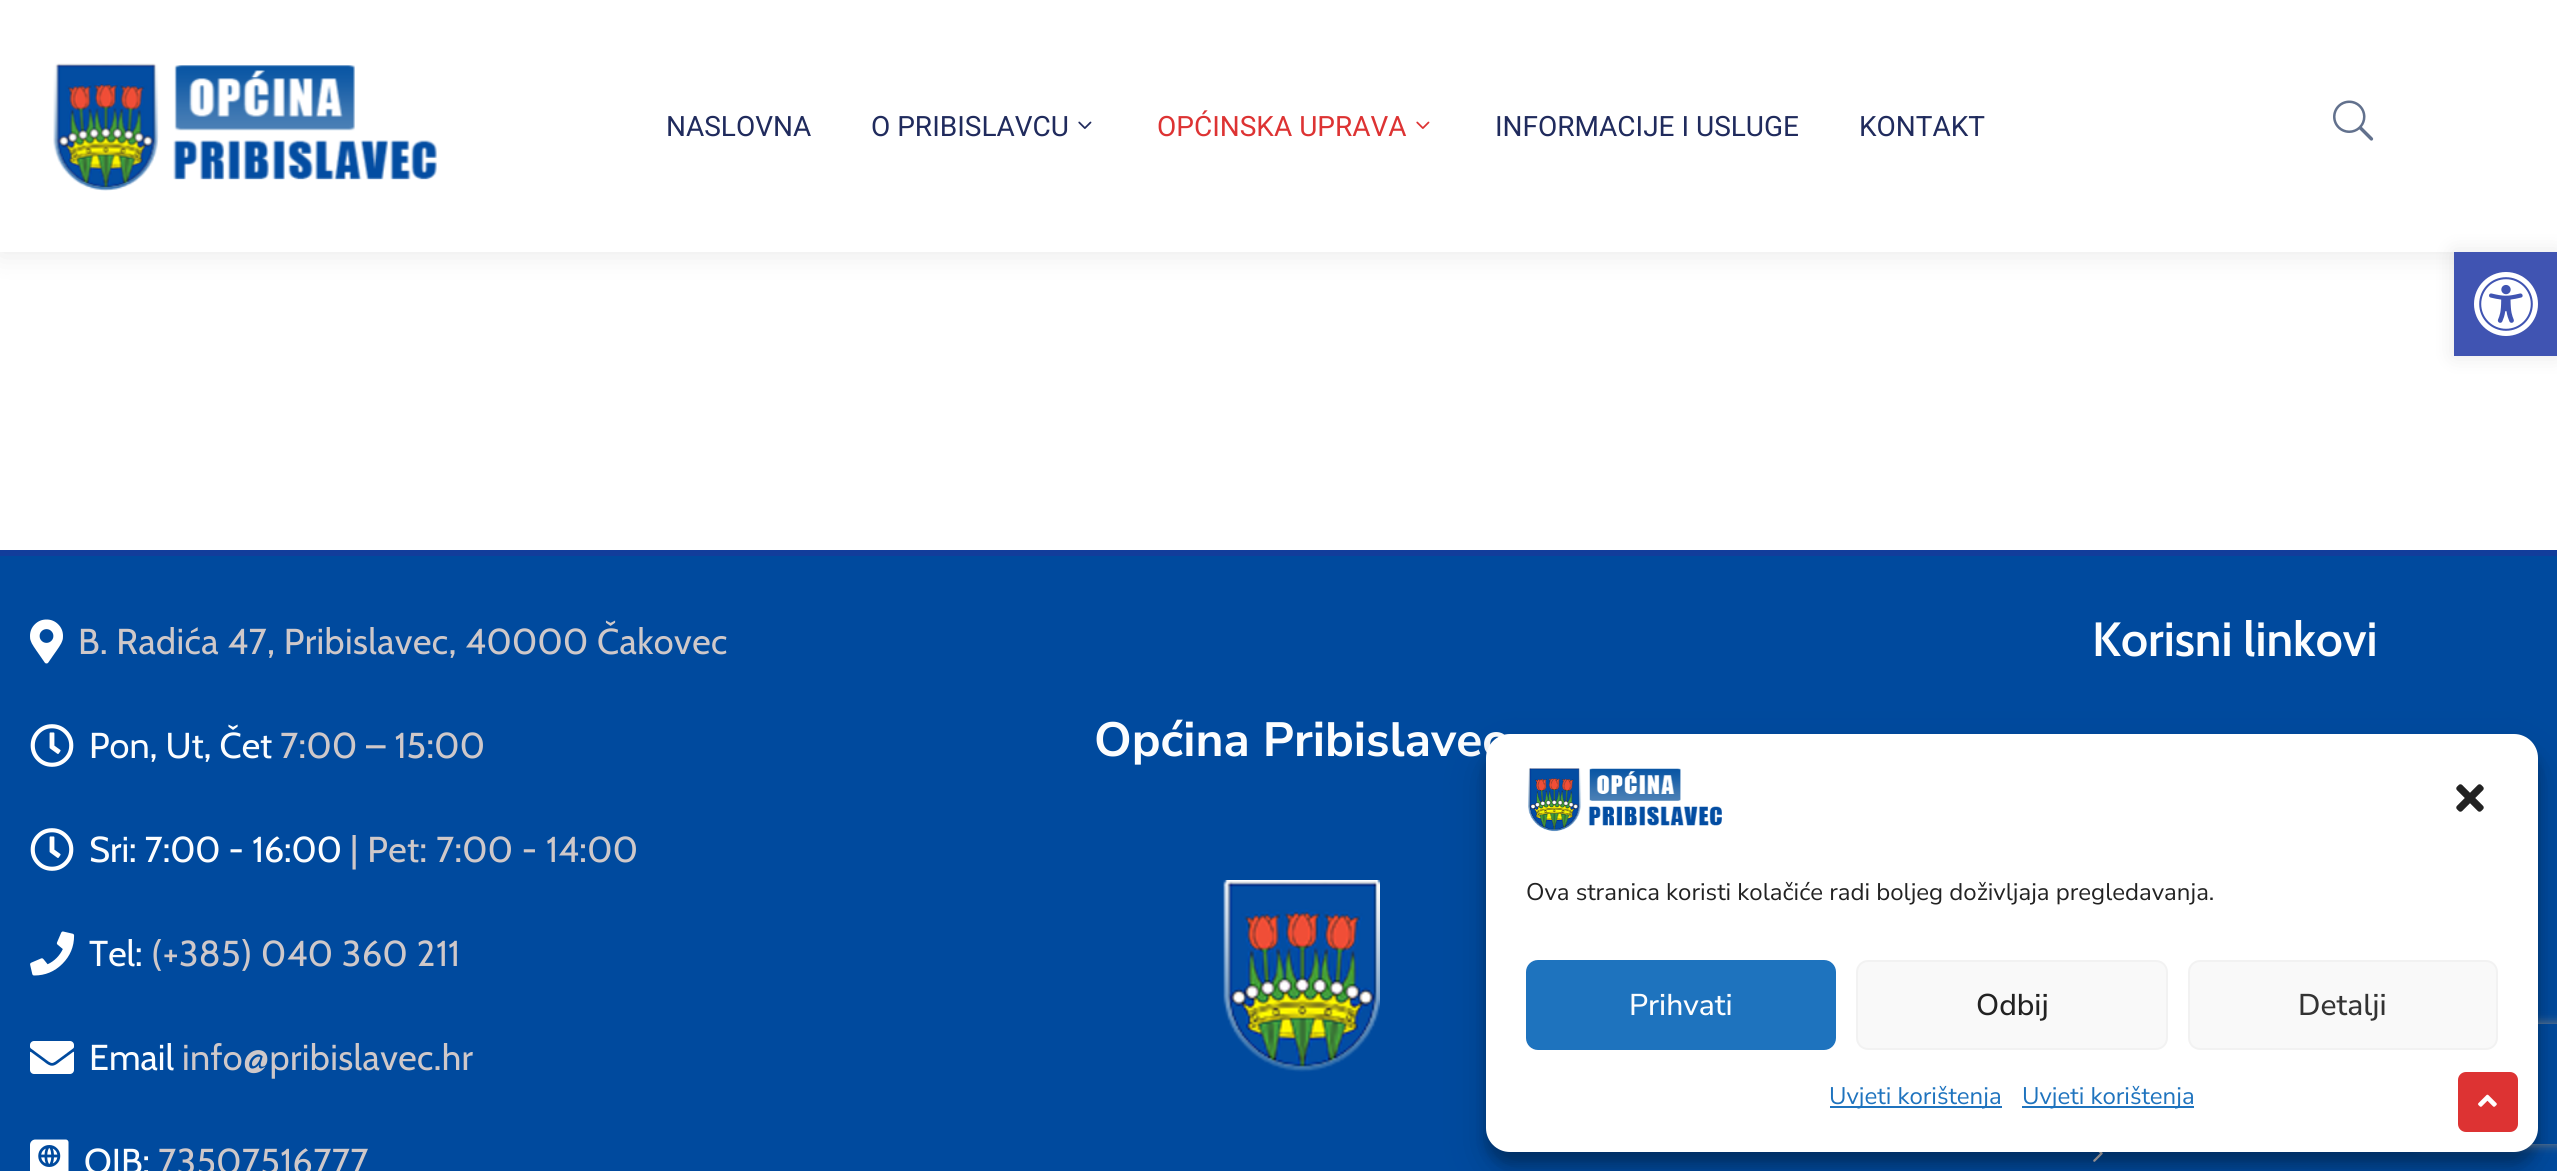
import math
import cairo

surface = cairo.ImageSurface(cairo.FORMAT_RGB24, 2557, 1171)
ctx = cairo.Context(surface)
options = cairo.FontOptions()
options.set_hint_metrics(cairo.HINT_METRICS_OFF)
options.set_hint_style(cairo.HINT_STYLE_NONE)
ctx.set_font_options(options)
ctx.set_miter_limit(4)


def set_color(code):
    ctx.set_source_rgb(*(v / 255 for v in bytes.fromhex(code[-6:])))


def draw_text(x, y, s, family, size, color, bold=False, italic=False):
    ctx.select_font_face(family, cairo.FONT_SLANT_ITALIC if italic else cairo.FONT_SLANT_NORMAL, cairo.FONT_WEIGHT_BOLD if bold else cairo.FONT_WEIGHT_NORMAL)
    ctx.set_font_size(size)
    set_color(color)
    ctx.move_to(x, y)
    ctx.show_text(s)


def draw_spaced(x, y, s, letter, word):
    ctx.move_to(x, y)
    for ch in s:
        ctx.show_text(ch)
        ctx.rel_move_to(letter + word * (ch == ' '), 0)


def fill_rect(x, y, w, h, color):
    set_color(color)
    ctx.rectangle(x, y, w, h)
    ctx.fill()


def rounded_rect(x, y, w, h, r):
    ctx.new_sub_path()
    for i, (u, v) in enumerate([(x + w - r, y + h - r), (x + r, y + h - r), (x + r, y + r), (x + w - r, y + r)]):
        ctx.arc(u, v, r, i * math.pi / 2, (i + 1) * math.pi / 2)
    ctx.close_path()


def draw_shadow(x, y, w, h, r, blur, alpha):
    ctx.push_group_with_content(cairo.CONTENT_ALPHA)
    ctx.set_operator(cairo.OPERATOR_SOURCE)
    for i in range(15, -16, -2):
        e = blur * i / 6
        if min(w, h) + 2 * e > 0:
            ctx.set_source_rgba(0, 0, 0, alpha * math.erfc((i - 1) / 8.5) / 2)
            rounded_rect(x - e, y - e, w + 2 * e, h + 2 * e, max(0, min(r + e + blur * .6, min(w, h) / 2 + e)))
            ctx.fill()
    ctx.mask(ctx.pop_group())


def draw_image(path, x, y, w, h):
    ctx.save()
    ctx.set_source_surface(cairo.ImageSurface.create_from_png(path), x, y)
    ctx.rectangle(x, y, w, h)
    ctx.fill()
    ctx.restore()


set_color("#ffffff")
ctx.paint()
set_color("#000000")
draw_shadow(0, 0, 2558, 252, 0, 15, 0.1)
fill_rect(0, 0, 2557, 252, "#ffffff")
draw_image("assets/img1.png", 53, 63, 384, 128)
draw_text(666, 136, "NASLOVNA", "Roboto", 28, "#202b5d")
draw_text(871, 136, "O PRIBISLAVCU", "Roboto", 28, "#202b5d")
draw_image("assets/img2.png", 1078, 121, 14, 8)
draw_text(1157, 136, "OPĆINSKA UPRAVA", "Roboto", 28, "#dd3333")
draw_image("assets/img3.png", 1416, 121, 14, 8)
draw_text(1495, 136, "INFORMACIJE I USLUGE", "Roboto", 28, "#202b5d")
draw_text(1859, 136, "KONTAKT", "Roboto", 28, "#202b5d")
draw_image("assets/img4.png", 2333, 100, 41, 41)
fill_rect(0, 556, 2557, 615, "#004a9e")
fill_rect(0, 550, 2557, 6, "#123d9b")
draw_image("assets/img5.png", 30, 619, 33, 45)
ctx.select_font_face("Cabin")
ctx.set_font_size(36)
set_color("#cfc8c9")
draw_spaced(78, 654, "B. Radića 47, Pribislavec, 40000 Čakovec", 0.4, 0)
draw_image("assets/img6.png", 30, 724, 44, 43)
draw_text(89, 758, "Pon, Ut, Čet", "Cabin", 36, "#fcfdfe")
set_color("#cfc8c9")
draw_spaced(280, 758, "7:00 – 15:00", 0.4, 0)
draw_image("assets/img6.png", 30, 828, 44, 43)
draw_text(89, 862, "Sri: 7:00 - 16:00", "Cabin", 36, "#fcfdfe")
set_color("#cfc8c9")
draw_spaced(350, 862, "| Pet: 7:00 - 14:00", 0.4, 0)
draw_image("assets/img7.png", 30, 931, 45, 45)
draw_text(89, 966, "Tel:", "Cabin", 36, "#fcfdfe")
set_color("#cfc8c9")
draw_spaced(151, 966, "(+385) 040 360 211", 0.4, 0)
draw_image("assets/img8.png", 30, 1041, 44, 33)
draw_text(89, 1070, "Email", "Cabin", 36, "#fcfdfe")
set_color("#cfc8c9")
draw_spaced(182, 1070, "info@pribislavec.hr", 0.4, 0)
draw_image("assets/img9.png", 30, 1139, 39, 32)
draw_text(84, 1174, "OIB:", "Cabin", 36, "#fcfdfe")
set_color("#cfc8c9")
draw_spaced(158, 1174, "73507516777", 0.4, 0)
draw_text(2092, 656, "Korisni linkovi", "Cabin SemiBold", 48, "#fcfdfe")
draw_image("assets/img10.png", 2093, 1152, 10, 10)
draw_text(1094, 756, "Općina Pribislavec", "Nunito Sans", 48, "#fcfdfe", bold=True)
draw_image("assets/img11.png", 1223, 880, 157, 192)
set_color("#000000")
draw_shadow(2454, 252, 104, 104, 0, 10, 0.1)
fill_rect(2454, 252, 103, 104, "#4054b2")
draw_image("assets/img12.png", 2474, 272, 64, 64)
set_color("#000000")
draw_shadow(1486, 746, 1052, 418, 24, 6, 0.23)
draw_shadow(1486, 754, 1052, 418, 24, 20, 0.19)
ctx.save()
ctx.set_fill_rule(cairo.FILL_RULE_EVEN_ODD)
ctx.new_path()
ctx.move_to(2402, 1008)
ctx.line_to(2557, 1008)
ctx.line_to(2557, 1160)
ctx.line_to(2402, 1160)
ctx.close_path()
ctx.move_to(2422, 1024)
ctx.line_to(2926, 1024)
ctx.curve_to(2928, 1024, 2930, 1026, 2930, 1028)
ctx.line_to(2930, 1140)
ctx.curve_to(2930, 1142, 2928, 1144, 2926, 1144)
ctx.line_to(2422, 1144)
ctx.curve_to(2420, 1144, 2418, 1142, 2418, 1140)
ctx.line_to(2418, 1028)
ctx.curve_to(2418, 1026, 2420, 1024, 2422, 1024)
ctx.close_path()
ctx.clip()
set_color("#808080")
draw_shadow(2418, 1024, 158, 120, 4, 5, 1)
ctx.restore()
set_color("#ffffff")
rounded_rect(1486, 734, 1052, 418, 24)
ctx.fill()
draw_image("assets/img13.png", 1528, 768, 194, 64)
draw_image("assets/img14.png", 2456, 784, 28, 28)
draw_text(1526, 900, "Ova stranica koristi kolačiće radi boljeg doživljaja pregledavanja.", "Nunito Sans", 24, "#222222")
set_color("#1e73be")
rounded_rect(1527, 961, 308, 88, 11)
ctx.fill_preserve()
ctx.stroke()
draw_text(1629, 1015, "Prihvati", "Nunito Sans Medium", 30, "#fcfdfe")
set_color("#f9f9f9")
rounded_rect(1857, 961, 310, 88, 11)
ctx.fill_preserve()
set_color("#f2f2f2")
ctx.stroke()
draw_text(1976, 1015, "Odbij", "Nunito Sans Medium", 30, "#222222")
set_color("#f9f9f9")
rounded_rect(2189, 961, 308, 88, 11)
ctx.fill_preserve()
set_color("#f2f2f2")
ctx.stroke()
draw_text(2298, 1015, "Detalji", "Nunito Sans Medium", 30, "#333333")
fill_rect(1830, 1106, 172, 2, "#1e73be")
draw_text(1829, 1104, "Uvjeti korištenja", "Nunito Sans", 24, "#1e73be")
fill_rect(2022, 1106, 172, 2, "#1e73be")
draw_text(2022, 1104, "Uvjeti korištenja", "Nunito Sans", 24, "#1e73be")
set_color("#dd3333")
rounded_rect(2458, 1072, 60, 60, 8)
ctx.fill()
draw_image("assets/img15.png", 2478, 1094, 19, 13)
surface.write_to_png("output.png")
